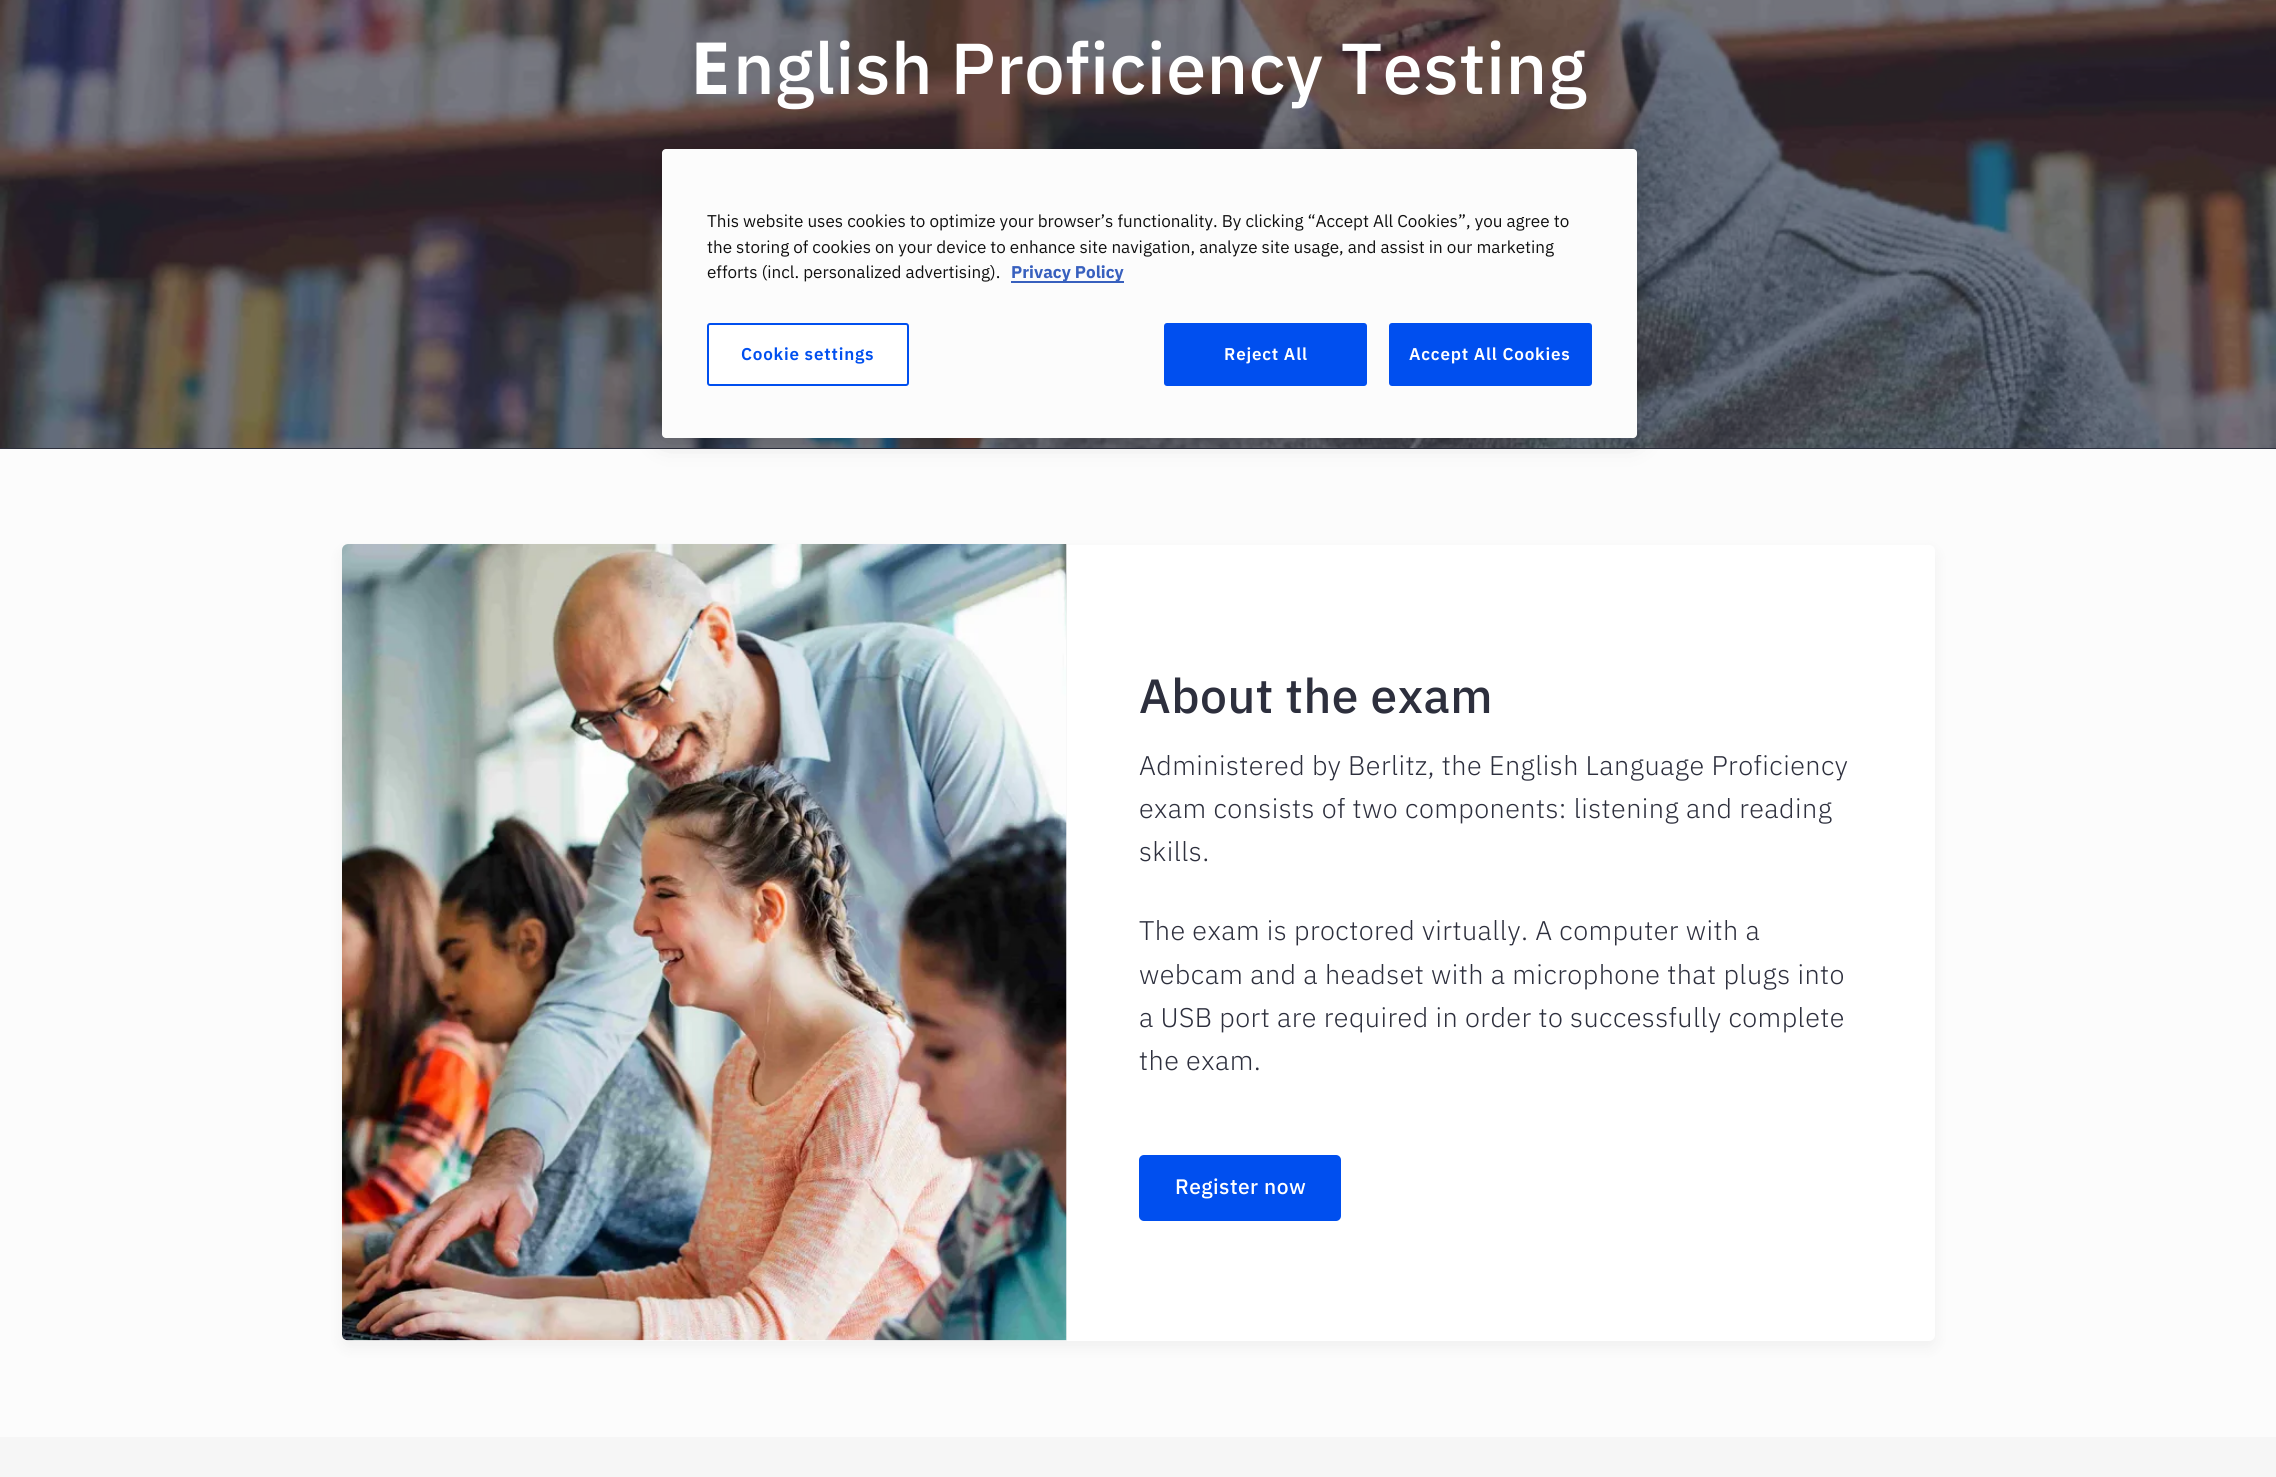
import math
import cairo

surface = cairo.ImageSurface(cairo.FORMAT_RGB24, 2276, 1477)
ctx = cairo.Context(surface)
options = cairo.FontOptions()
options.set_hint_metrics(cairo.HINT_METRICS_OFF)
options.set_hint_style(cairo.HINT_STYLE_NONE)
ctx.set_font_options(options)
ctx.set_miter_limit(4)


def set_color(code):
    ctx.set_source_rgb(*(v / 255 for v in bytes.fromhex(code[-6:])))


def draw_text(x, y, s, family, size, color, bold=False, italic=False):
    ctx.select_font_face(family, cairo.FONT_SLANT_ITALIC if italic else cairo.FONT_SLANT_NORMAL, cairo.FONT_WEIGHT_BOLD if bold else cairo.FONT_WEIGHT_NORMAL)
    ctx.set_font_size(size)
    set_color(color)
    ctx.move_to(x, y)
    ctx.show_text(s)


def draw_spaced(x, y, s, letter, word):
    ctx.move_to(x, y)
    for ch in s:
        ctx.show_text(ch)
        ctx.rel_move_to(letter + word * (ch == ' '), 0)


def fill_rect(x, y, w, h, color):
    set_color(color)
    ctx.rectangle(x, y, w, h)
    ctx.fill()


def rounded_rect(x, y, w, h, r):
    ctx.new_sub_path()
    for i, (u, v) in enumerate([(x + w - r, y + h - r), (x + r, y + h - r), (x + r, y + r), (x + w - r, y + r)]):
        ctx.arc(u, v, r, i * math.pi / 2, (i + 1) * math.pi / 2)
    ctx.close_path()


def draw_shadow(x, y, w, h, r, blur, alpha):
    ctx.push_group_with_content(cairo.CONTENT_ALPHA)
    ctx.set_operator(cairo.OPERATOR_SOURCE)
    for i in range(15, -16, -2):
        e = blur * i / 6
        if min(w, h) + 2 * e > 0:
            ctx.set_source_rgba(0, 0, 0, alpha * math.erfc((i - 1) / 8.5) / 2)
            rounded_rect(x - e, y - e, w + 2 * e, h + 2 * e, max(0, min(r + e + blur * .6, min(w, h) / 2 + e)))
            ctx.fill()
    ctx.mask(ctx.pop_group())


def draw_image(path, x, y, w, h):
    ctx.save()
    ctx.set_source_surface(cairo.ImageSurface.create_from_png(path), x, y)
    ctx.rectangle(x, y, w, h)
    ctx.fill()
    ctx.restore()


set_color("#fcfcfc")
ctx.paint()
fill_rect(0, 448, 2276, 1, "#2d2f3d")
draw_image("assets/img1.png", 0, 0, 2276, 448)
ctx.select_font_face("Noto Sans", cairo.FONT_SLANT_NORMAL, cairo.FONT_WEIGHT_BOLD)
ctx.set_font_size(72)
set_color("#ffffff")
draw_spaced(690, 94, "E", 0.45, 0)
ctx.select_font_face("IBM Plex Sans Medium")
draw_spaced(733, 94, "nglish Proficiency Testing", 0.45, 0)
set_color("#000000")
draw_shadow(342, 551, 1593, 796, 6, 7.5, 0.05)
set_color("#ffffff")
rounded_rect(342, 545, 1593, 796, 6)
ctx.fill()
gradient = cairo.LinearGradient(342, 943, 1067, 943)
gradient.add_color_stop_rgba(0.2, 0.965, 0.965, 0.965, 1)
gradient.add_color_stop_rgba(0.5, 1, 1, 1, 1)
gradient.add_color_stop_rgba(0.8, 0.965, 0.965, 0.965, 1)
ctx.set_source(gradient)
ctx.new_path()
ctx.move_to(348, 545)
ctx.line_to(1067, 545)
ctx.line_to(1067, 1341)
ctx.line_to(348, 1341)
ctx.curve_to(344.5, 1341, 342, 1338.5, 342, 1335)
ctx.line_to(342, 551)
ctx.curve_to(342, 547.5, 344.5, 545, 348, 545)
ctx.close_path()
ctx.fill()
draw_image("assets/img2.png", 342, 544, 725, 797)
ctx.set_font_size(48)
set_color("#2d2f3d")
draw_spaced(1139, 713, "About the exam", 0.45, 0)
ctx.select_font_face("IBM Plex Sans Light")
ctx.set_font_size(27)
draw_spaced(1139, 775, "Administered by Berlitz, the English Language Proficiency", 0.45, 0)
draw_spaced(1139, 818, "exam consists of two components: listening and reading", 0.45, 0)
draw_spaced(1139, 861, "skills.", 0.45, 0)
draw_spaced(1139, 940, "The exam is proctored virtually. A computer with a", 0.45, 0)
draw_spaced(1139, 984, "webcam and a headset with a microphone that plugs into", 0.45, 0)
draw_spaced(1139, 1027, "a USB port are required in order to successfully complete", 0.45, 0)
draw_spaced(1139, 1070, "the exam.", 0.45, 0)
set_color("#004fef")
rounded_rect(1139, 1155, 202, 66, 5)
ctx.fill()
ctx.select_font_face("IBM Plex Sans Medium")
ctx.set_font_size(21)
set_color("#ffffff")
draw_spaced(1175, 1194, "Register now", 0.45, 0)
fill_rect(0, 1437, 2276, 40, "#f6f6f6")
set_color("#000000")
draw_shadow(662, 149, 975, 289, 4, 13.5, 0.2)
set_color("#fcfcfc")
rounded_rect(662, 149, 975, 289, 4)
ctx.fill()
draw_text(707, 227, "This website uses cookies to optimize your browser’s functionality. By clicking “Accept All Cookies”, you agree to", "IBM Plex Sans", 17.07, "#101010")
draw_text(707, 253, "the storing of cookies on your device to enhance site navigation, analyze site usage, and assist in our marketing", "IBM Plex Sans", 17.07, "#101010")
draw_text(707, 278, "efforts (incl. personalized advertising).", "IBM Plex Sans", 17.07, "#101010")
fill_rect(1011, 281, 113, 2, "#3860be")
draw_text(1011, 278, "Privacy Policy", "IBM Plex Sans", 17.07, "#3860be", bold=True)
set_color("#ffffff")
rounded_rect(708, 324, 200, 61, 2)
ctx.fill_preserve()
set_color("#004fef")
ctx.stroke()
ctx.select_font_face("IBM Plex Sans SemiBold")
draw_spaced(741, 360, "Cookie settings", 0.8, 0)
rounded_rect(1165, 324, 201, 61, 2)
ctx.fill_preserve()
ctx.stroke()
set_color("#ffffff")
draw_spaced(1224, 360, "Reject All", 0.8, 0)
set_color("#004fef")
rounded_rect(1390, 324, 201, 61, 2)
ctx.fill_preserve()
ctx.stroke()
set_color("#ffffff")
draw_spaced(1409, 360, "Accept All Cookies", 0.8, 0)
surface.write_to_png("output.png")
